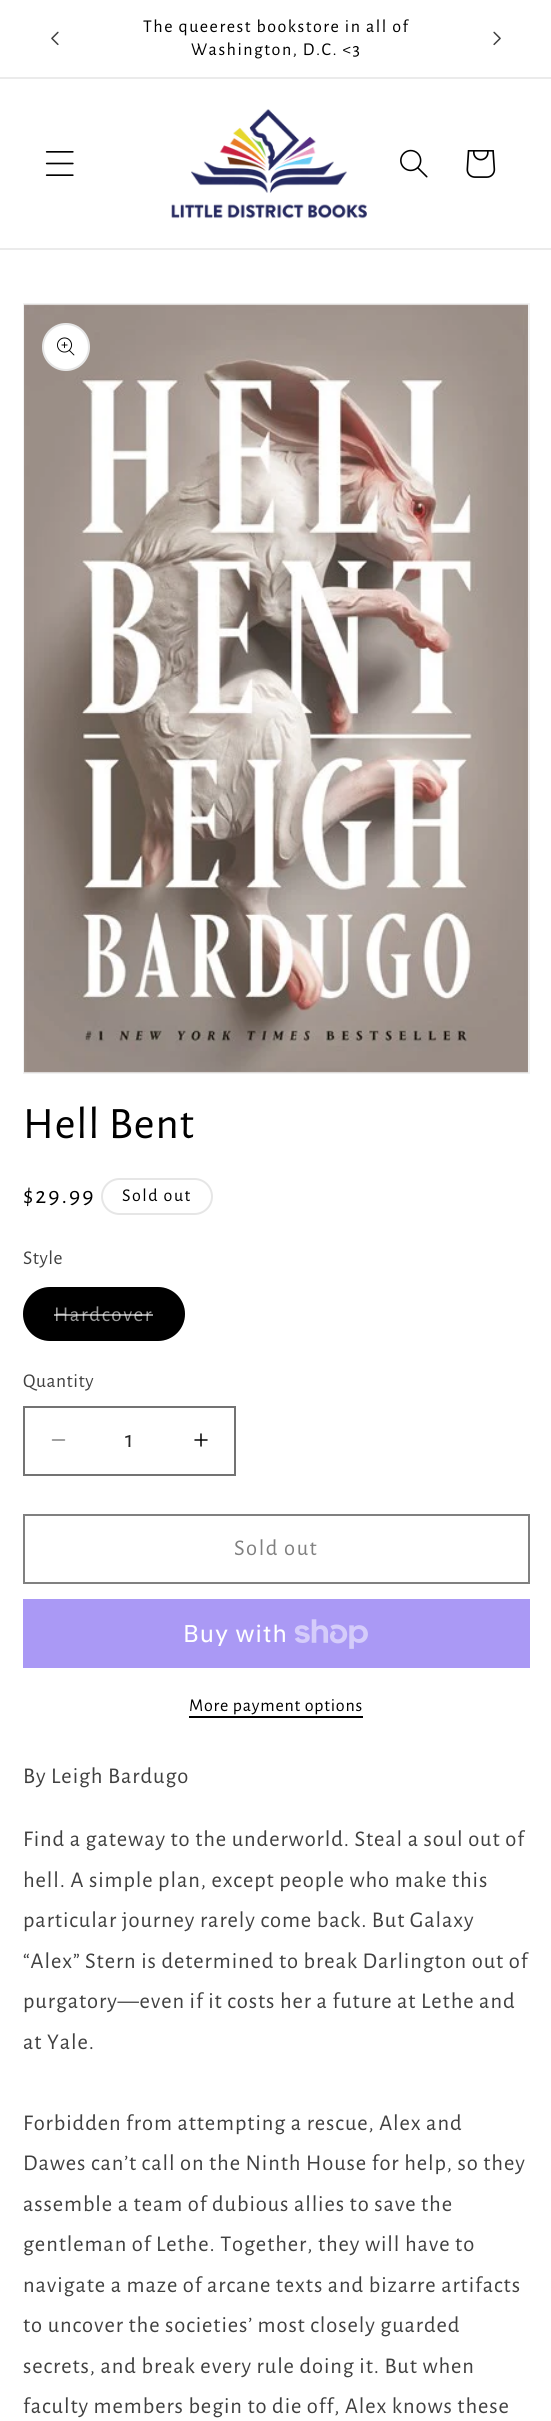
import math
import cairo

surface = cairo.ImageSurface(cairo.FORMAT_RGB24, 551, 2421)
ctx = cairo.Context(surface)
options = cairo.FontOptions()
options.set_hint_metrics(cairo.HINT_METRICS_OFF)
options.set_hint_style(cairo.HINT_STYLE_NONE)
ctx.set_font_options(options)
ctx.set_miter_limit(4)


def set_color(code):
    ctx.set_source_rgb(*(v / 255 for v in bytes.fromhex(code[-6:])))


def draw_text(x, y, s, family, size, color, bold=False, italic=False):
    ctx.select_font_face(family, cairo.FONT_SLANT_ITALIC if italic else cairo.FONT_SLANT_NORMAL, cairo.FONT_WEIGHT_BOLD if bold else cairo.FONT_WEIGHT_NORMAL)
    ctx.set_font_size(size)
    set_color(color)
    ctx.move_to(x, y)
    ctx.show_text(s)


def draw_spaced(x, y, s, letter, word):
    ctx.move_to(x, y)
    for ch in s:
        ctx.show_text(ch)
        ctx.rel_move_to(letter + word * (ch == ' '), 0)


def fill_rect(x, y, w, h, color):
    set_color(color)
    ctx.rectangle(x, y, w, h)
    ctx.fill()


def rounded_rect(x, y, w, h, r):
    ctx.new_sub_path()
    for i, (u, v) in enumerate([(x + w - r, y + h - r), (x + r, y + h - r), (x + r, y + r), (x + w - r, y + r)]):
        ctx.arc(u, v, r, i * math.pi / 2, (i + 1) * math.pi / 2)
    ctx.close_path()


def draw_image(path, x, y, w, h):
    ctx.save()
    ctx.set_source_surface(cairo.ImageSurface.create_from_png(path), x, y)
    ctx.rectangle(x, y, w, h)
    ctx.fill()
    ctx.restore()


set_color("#ffffff")
ctx.paint()
fill_rect(0, 77, 551, 2, "#ebebeb")
draw_image("assets/img1.png", 51, 31, 8, 15)
ctx.select_font_face("Alegreya Sans")
ctx.set_font_size(18)
set_color("#000000")
draw_spaced(143, 32, "The queerest bookstore in all of", 1.5, 0)
draw_spaced(191, 55, "Washington, D.C. <3", 1.5, 0)
draw_image("assets/img2.png", 493, 31, 8, 15)
fill_rect(0, 248, 551, 2, "#ebebeb")
draw_image("assets/img3.png", 45, 151, 29, 25)
draw_image("assets/img4.png", 171, 109, 196, 110)
draw_image("assets/img5.png", 400, 149, 28, 29)
draw_image("assets/img6.png", 466, 150, 30, 28)
ctx.rectangle(24, 304, 505, 769)
set_color("#f2f2f2")
ctx.stroke()
draw_image("assets/img7.png", 24, 304, 504, 769)
set_color("#ffffff")
ctx.arc(66, 347, 24, 0, 2 * math.pi)
ctx.fill()
ctx.arc(66, 347, 23, 0, 2 * math.pi)
ctx.set_source_rgba(0, 0, 0, 0.1)
ctx.stroke()
draw_image("assets/img8.png", 57, 337, 18, 19)
ctx.set_font_size(45)
set_color("#000000")
draw_spaced(23, 1138, "Hell Bent", 0.9, 0)
ctx.set_font_size(24)
draw_spaced(23, 1203, "$29.99", 2, 0)
rounded_rect(102, 1179, 110, 35, 17.5)
set_color("#e6e6e6")
ctx.stroke()
ctx.set_font_size(18)
set_color("#000000")
draw_spaced(122, 1201, "Sold out", 1.5, 0)
ctx.set_font_size(19.5)
set_color("#404040")
draw_spaced(23, 1264, "Style", 0.5, 0)
set_color("#000000")
rounded_rect(23, 1287, 162, 54, 27)
ctx.fill()
rounded_rect(24, 1288, 160, 52, 26)
ctx.set_source_rgba(0, 0, 0, 0.1)
ctx.stroke()
ctx.set_font_size(21)
set_color("#999999")
draw_spaced(54, 1321, "Hardcover", 1.5, 0)
ctx.set_source_rgba(1, 1, 1, 0.6)
ctx.rectangle(54, 1314, 99, 2)
ctx.fill()
ctx.set_font_size(19.5)
set_color("#404040")
draw_spaced(23, 1387, "Quantity", 0.5, 0)
draw_image("assets/img9.png", 51, 1439, 15, 2)
draw_image("assets/img10.png", 194, 1433, 14, 14)
ctx.rectangle(24, 1407, 211, 68)
set_color("#737373")
ctx.stroke()
draw_text(125, 1447, "1", "Alegreya Sans", 24, "#262626")
ctx.rectangle(24, 1515, 505, 68)
set_color("#808080")
ctx.stroke()
ctx.set_font_size(22.5)
draw_spaced(234, 1555, "Sold out", 1.5, 0)
fill_rect(23, 1599, 507, 69, "#aa99f5")
ctx.select_font_face("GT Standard")
ctx.set_font_size(24)
set_color("#ffffff")
draw_spaced(183, 1642, "Buy with", 0.9, 0)
draw_image("assets/img11.png", 294, 1619, 74, 30)
ctx.select_font_face("Alegreya Sans")
ctx.set_font_size(18)
set_color("#000000")
draw_spaced(189, 1711, "More payment options", 0.75, 0)
fill_rect(189, 1716, 174, 2, "#000000")
ctx.set_font_size(22.5)
set_color("#404040")
draw_spaced(23, 1783, "By Leigh Bardugo", 0.9, 0)
draw_spaced(23, 1846, "Find a gateway to the underworld. Steal a soul out of", 0.9, 0)
draw_spaced(23, 1887, "hell. A simple plan, except people who make this", 0.9, 0)
draw_spaced(23, 1927, "particular journey rarely come back. But Galaxy", 0.9, 0)
draw_spaced(23, 1968, "“Alex” Stern is determined to break Darlington out of", 0.9, 0)
draw_spaced(23, 2008, "purgatory—even if it costs her a future at Lethe and", 0.9, 0)
draw_spaced(23, 2049, "at Yale.", 0.9, 0)
draw_spaced(23, 2130, "Forbidden from attempting a rescue, Alex and", 0.9, 0)
draw_spaced(23, 2170, "Dawes can’t call on the Ninth House for help, so they", 0.9, 0)
draw_spaced(23, 2211, "assemble a team of dubious allies to save the", 0.9, 0)
draw_spaced(23, 2251, "gentleman of Lethe. Together, they will have to", 0.9, 0)
draw_spaced(23, 2292, "navigate a maze of arcane texts and bizarre artifacts", 0.9, 0)
draw_spaced(23, 2332, "to uncover the societies’ most closely guarded", 0.9, 0)
draw_spaced(23, 2373, "secrets, and break every rule doing it. But when", 0.9, 0)
draw_spaced(23, 2413, "faculty members begin to die off, Alex knows these", 0.9, 0)
surface.write_to_png("output.png")
